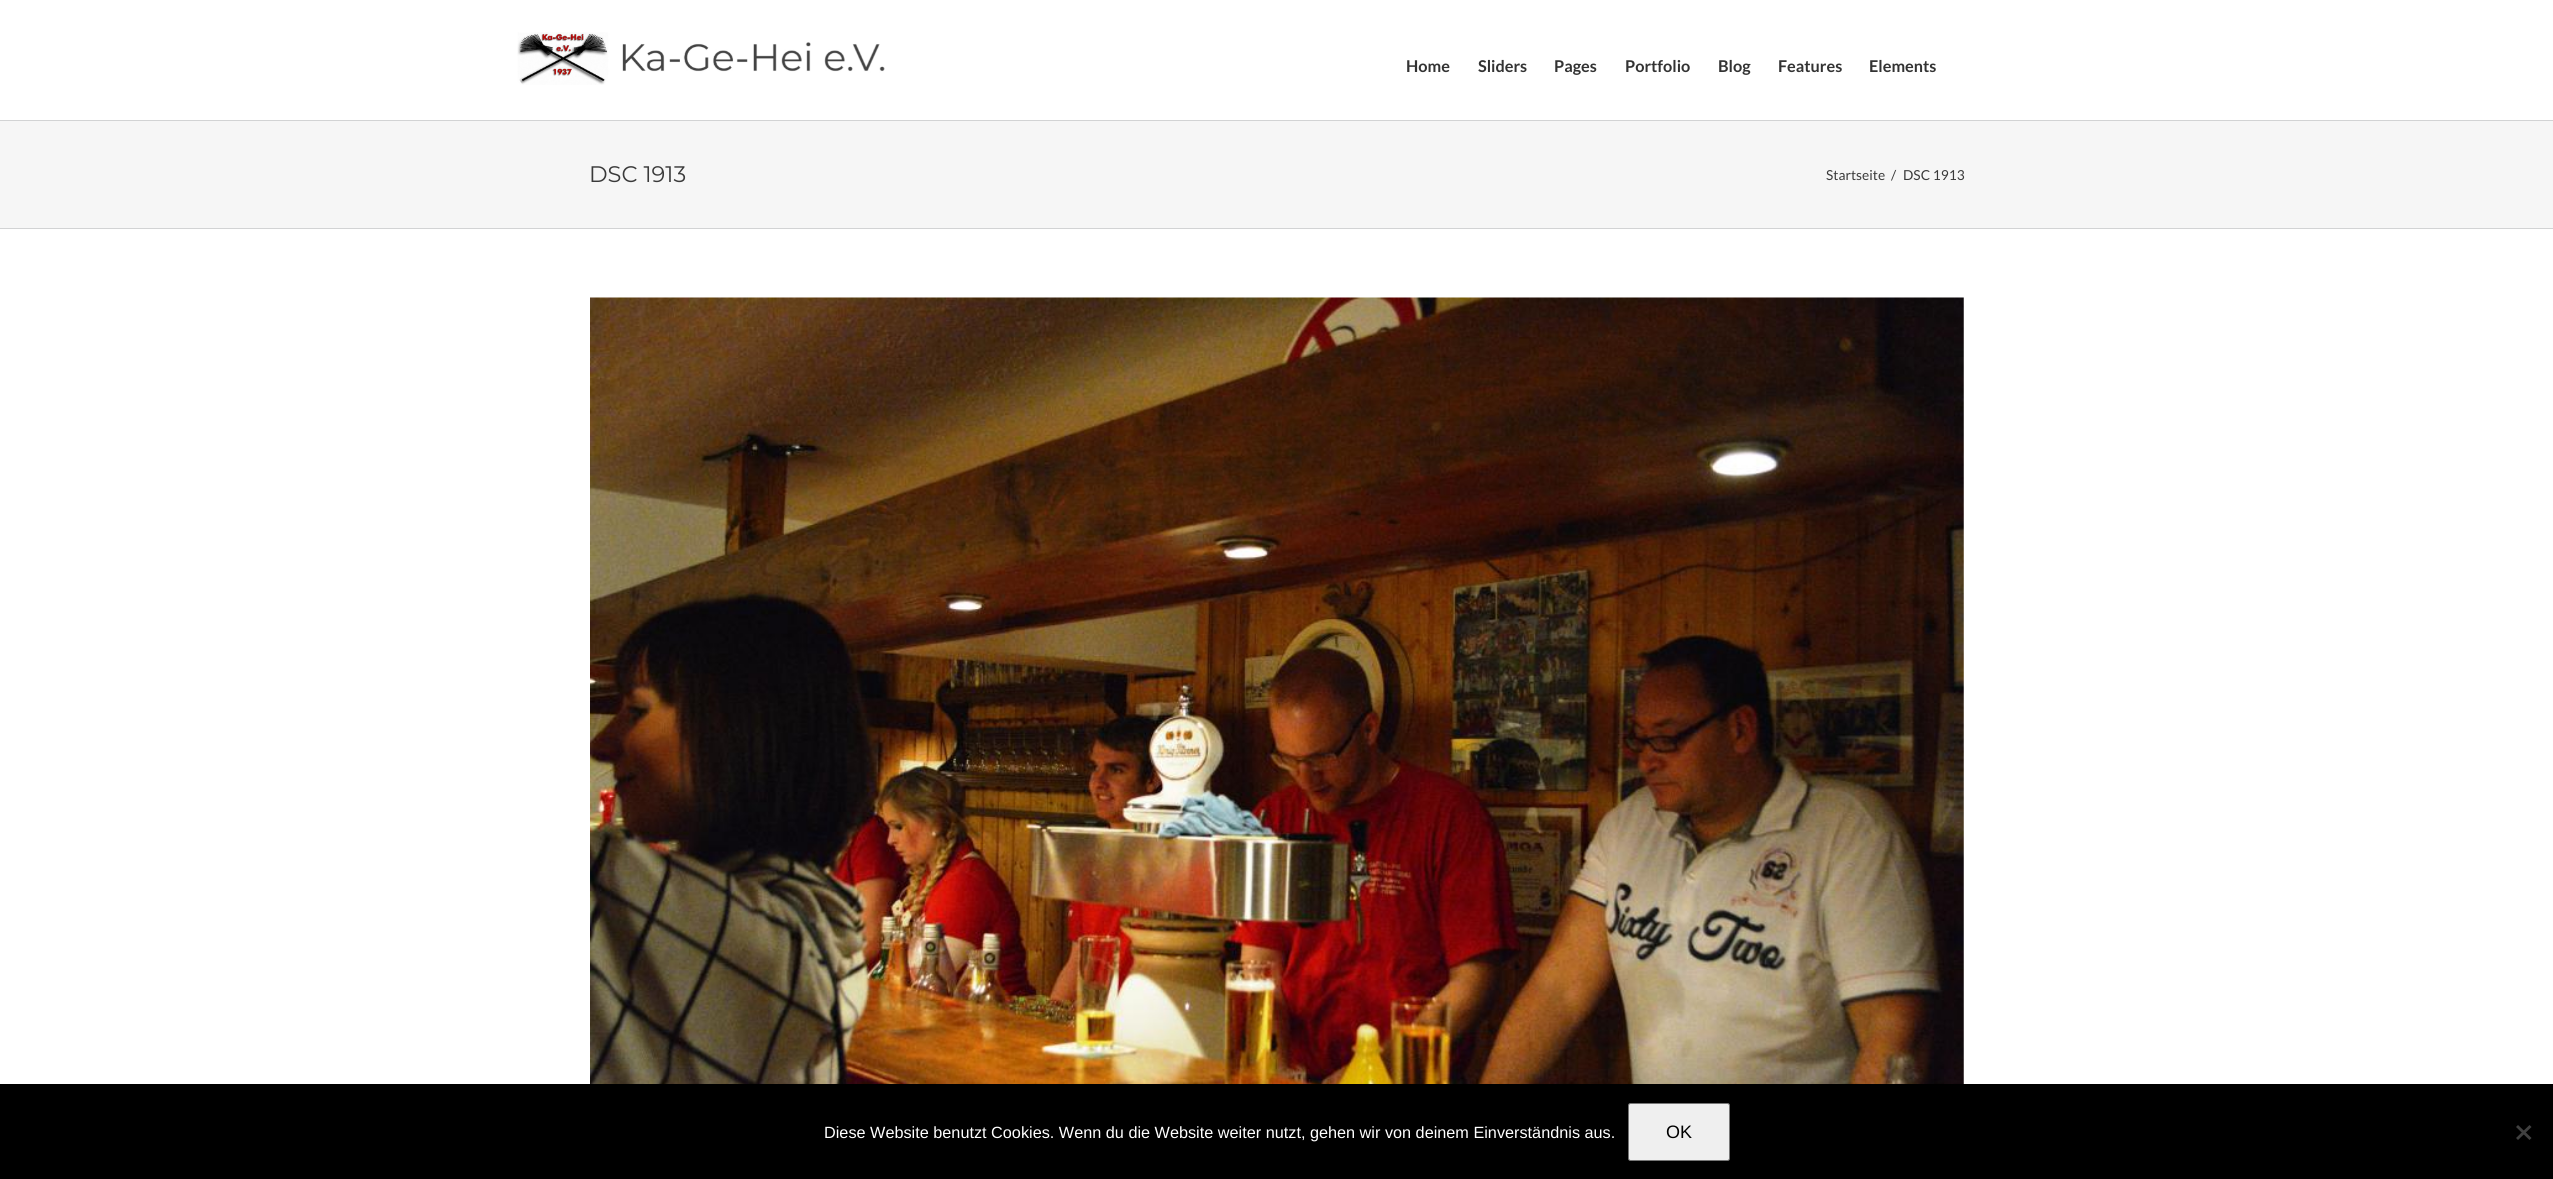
import math
import cairo

surface = cairo.ImageSurface(cairo.FORMAT_RGB24, 2553, 1179)
ctx = cairo.Context(surface)
options = cairo.FontOptions()
options.set_hint_metrics(cairo.HINT_METRICS_OFF)
options.set_hint_style(cairo.HINT_STYLE_NONE)
ctx.set_font_options(options)
ctx.set_miter_limit(4)


def set_color(code):
    ctx.set_source_rgb(*(v / 255 for v in bytes.fromhex(code[-6:])))


def draw_text(x, y, s, family, size, color, bold=False, italic=False):
    ctx.select_font_face(family, cairo.FONT_SLANT_ITALIC if italic else cairo.FONT_SLANT_NORMAL, cairo.FONT_WEIGHT_BOLD if bold else cairo.FONT_WEIGHT_NORMAL)
    ctx.set_font_size(size)
    set_color(color)
    ctx.move_to(x, y)
    ctx.show_text(s)


def fill_rect(x, y, w, h, color):
    set_color(color)
    ctx.rectangle(x, y, w, h)
    ctx.fill()


def rounded_rect(x, y, w, h, r):
    ctx.new_sub_path()
    for i, (u, v) in enumerate([(x + w - r, y + h - r), (x + r, y + h - r), (x + r, y + r), (x + w - r, y + r)]):
        ctx.arc(u, v, r, i * math.pi / 2, (i + 1) * math.pi / 2)
    ctx.close_path()


def draw_image(path, x, y, w, h):
    ctx.save()
    ctx.set_source_surface(cairo.ImageSurface.create_from_png(path), x, y)
    ctx.rectangle(x, y, w, h)
    ctx.fill()
    ctx.restore()


set_color("#ffffff")
ctx.paint()
draw_image("assets/img1.png", 517, 32, 368, 53)
draw_text(1406, 72, "Home", "Lato", 16.25, "#333333", bold=True)
draw_text(1478, 72, "Sliders", "Lato", 16.25, "#333333", bold=True)
draw_text(1554, 72, "Pages", "Lato", 16.25, "#333333", bold=True)
draw_text(1625, 72, "Portfolio", "Lato", 16.25, "#333333", bold=True)
draw_text(1718, 72, "Blog", "Lato", 16.25, "#333333", bold=True)
draw_text(1778, 72, "Features", "Lato", 16.25, "#333333", bold=True)
draw_text(1869, 72, "Elements", "Lato", 16.25, "#333333", bold=True)
fill_rect(0, 121, 2553, 107, "#f6f6f6")
fill_rect(0, 120, 2553, 1, "#d2d3d4")
fill_rect(0, 228, 2553, 1, "#d2d3d4")
draw_text(589, 182, "DSC 1913", "Montserrat", 22.5, "#3a3a3a")
draw_text(1826, 180, "Startseite", "Lato", 13.75, "#3a3a3a")
draw_text(1891, 180, "/", "Lato", 13.75, "#3a3a3a")
draw_text(1903, 180, "DSC 1913", "Lato", 13.75, "#3a3a3a")
draw_image("assets/img2.png", 590, 297, 1374, 787)
fill_rect(0, 1084, 2553, 95, "#000000")
draw_text(824, 1138, "Diese Website benutzt Cookies. Wenn du die Website weiter nutzt, gehen wir von deinem Einverständnis aus.", "Liberation Sans", 16.25, "#ffffff")
set_color("#efefef")
rounded_rect(1628.5, 1103.5, 101, 57, 2)
ctx.fill_preserve()
set_color("#767676")
ctx.set_line_width(1)
ctx.stroke()
draw_text(1666, 1138, "OK", "Liberation Sans", 18, "#000000")
set_color("#404040")
ctx.new_path()
ctx.move_to(2529.5, 1125)
ctx.line_to(2531.5, 1127)
ctx.line_to(2518, 1140)
ctx.line_to(2516, 1138)
ctx.close_path()
ctx.fill()
ctx.new_path()
ctx.move_to(2516, 1127)
ctx.line_to(2518, 1125)
ctx.line_to(2531.5, 1138)
ctx.line_to(2529.5, 1140)
ctx.close_path()
ctx.fill()
surface.write_to_png("output.png")
